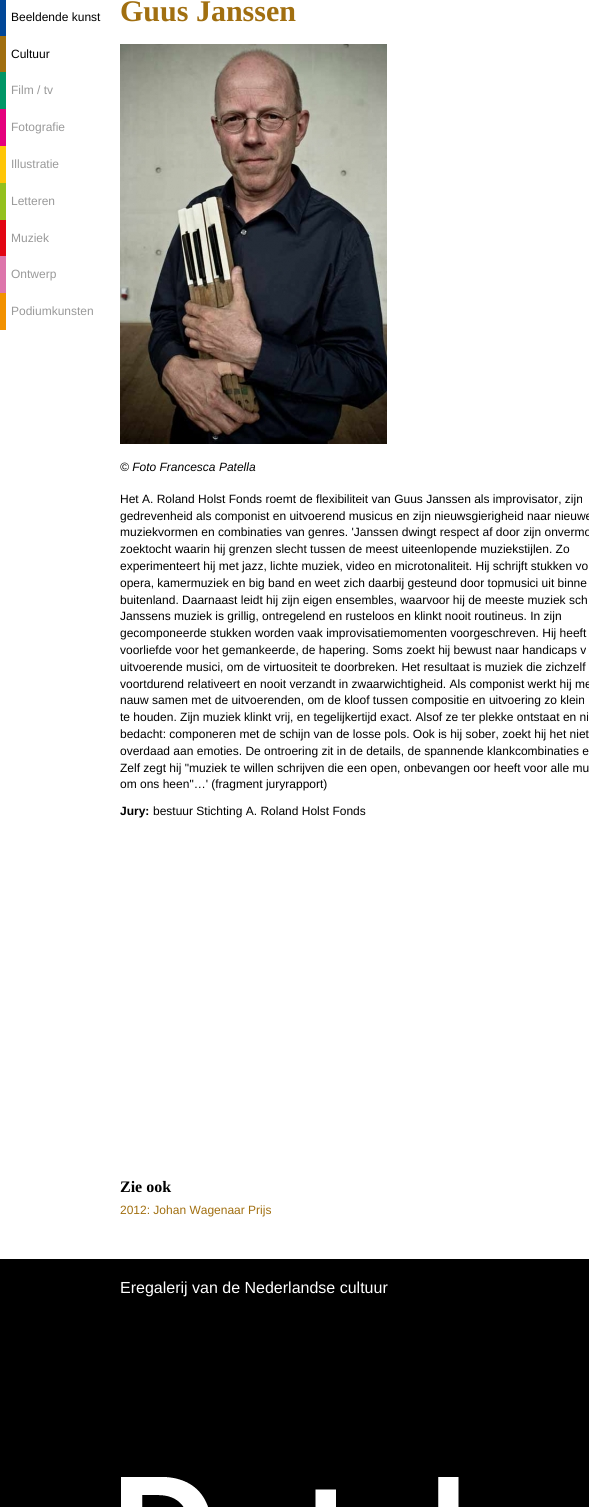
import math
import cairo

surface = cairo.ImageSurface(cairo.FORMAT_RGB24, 589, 1507)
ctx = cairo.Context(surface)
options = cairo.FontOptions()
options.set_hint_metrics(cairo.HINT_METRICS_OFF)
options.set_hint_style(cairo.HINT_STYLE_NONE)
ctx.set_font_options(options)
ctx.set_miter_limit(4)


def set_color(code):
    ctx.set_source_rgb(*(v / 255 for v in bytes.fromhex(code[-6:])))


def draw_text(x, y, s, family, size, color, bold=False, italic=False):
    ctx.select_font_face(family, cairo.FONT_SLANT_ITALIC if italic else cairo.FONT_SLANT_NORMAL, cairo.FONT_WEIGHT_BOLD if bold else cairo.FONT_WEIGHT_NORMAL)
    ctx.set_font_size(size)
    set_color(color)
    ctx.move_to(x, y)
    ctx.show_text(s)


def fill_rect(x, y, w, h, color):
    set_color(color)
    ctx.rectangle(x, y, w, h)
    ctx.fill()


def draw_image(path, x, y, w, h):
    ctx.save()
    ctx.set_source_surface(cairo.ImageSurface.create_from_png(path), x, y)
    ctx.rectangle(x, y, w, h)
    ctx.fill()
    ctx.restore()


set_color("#ffffff")
ctx.paint()
fill_rect(0, 0, 6, 36, "#014798")
draw_text(11, 21, "Beeldende kunst", "Liberation Sans", 12, "#000000")
fill_rect(0, 36, 6, 36, "#a16f10")
draw_text(11, 58, "Cultuur", "Liberation Sans", 12, "#000000")
fill_rect(0, 72, 6, 37, "#009666")
draw_text(11, 94, "Film / tv", "Liberation Sans", 12, "#999999")
fill_rect(0, 109, 6, 37, "#e5007d")
draw_text(11, 131, "Fotografie", "Liberation Sans", 12, "#999999")
fill_rect(0, 146, 6, 37, "#ffc606")
draw_text(11, 168, "Illustratie", "Liberation Sans", 12, "#999999")
fill_rect(0, 183, 6, 37, "#94c01e")
draw_text(11, 205, "Letteren", "Liberation Sans", 12, "#999999")
fill_rect(0, 220, 6, 36, "#e20513")
draw_text(11, 242, "Muziek", "Liberation Sans", 12, "#999999")
fill_rect(0, 256, 6, 37, "#dd75ab")
draw_text(11, 278, "Ontwerp", "Liberation Sans", 12, "#999999")
fill_rect(0, 293, 6, 37, "#f29100")
draw_text(11, 315, "Podiumkunsten", "Liberation Sans", 12, "#999999")
draw_text(120, 21, "Guus Janssen", "Liberation Serif", 30, "#a16f10", bold=True)
draw_image("assets/img1.png", 120, 44, 267, 400)
draw_text(120, 471, "© Foto Francesca Patella", "Liberation Sans", 12, "#000000", italic=True)
draw_text(120, 503, "Het A. Roland Holst Fonds roemt de flexibiliteit van Guus Janssen als improvisator, zijn", "Liberation Sans", 12, "#000000")
draw_text(120, 520, "gedrevenheid als componist en uitvoerend musicus en zijn nieuwsgierigheid naar nieuwe", "Liberation Sans", 12, "#000000")
draw_text(120, 536, "muziekvormen en combinaties van genres. 'Janssen dwingt respect af door zijn onvermo", "Liberation Sans", 12, "#000000")
draw_text(120, 553, "zoektocht waarin hij grenzen slecht tussen de meest uiteenlopende muziekstijlen. Zo", "Liberation Sans", 12, "#000000")
draw_text(120, 570, "experimenteert hij met jazz, lichte muziek, video en microtonaliteit. Hij schrijft stukken vo", "Liberation Sans", 12, "#000000")
draw_text(120, 587, "opera, kamermuziek en big band en weet zich daarbij gesteund door topmusici uit binne", "Liberation Sans", 12, "#000000")
draw_text(120, 604, "buitenland. Daarnaast leidt hij zijn eigen ensembles, waarvoor hij de meeste muziek sch", "Liberation Sans", 12, "#000000")
draw_text(120, 620, "Janssens muziek is grillig, ontregelend en rusteloos en klinkt nooit routineus. In zijn", "Liberation Sans", 12, "#000000")
draw_text(120, 637, "gecomponeerde stukken worden vaak improvisatiemomenten voorgeschreven. Hij heeft", "Liberation Sans", 12, "#000000")
draw_text(120, 654, "voorliefde voor het gemankeerde, de hapering. Soms zoekt hij bewust naar handicaps v", "Liberation Sans", 12, "#000000")
draw_text(120, 671, "uitvoerende musici, om de virtuositeit te doorbreken. Het resultaat is muziek die zichzelf", "Liberation Sans", 12, "#000000")
draw_text(120, 688, "voortdurend relativeert en nooit verzandt in zwaarwichtigheid. Als componist werkt hij me", "Liberation Sans", 12, "#000000")
draw_text(120, 704, "nauw samen met de uitvoerenden, om de kloof tussen compositie en uitvoering zo klein", "Liberation Sans", 12, "#000000")
draw_text(120, 721, "te houden. Zijn muziek klinkt vrij, en tegelijkertijd exact. Alsof ze ter plekke ontstaat en ni", "Liberation Sans", 12, "#000000")
draw_text(120, 738, "bedacht: componeren met de schijn van de losse pols. Ook is hij sober, zoekt hij het niet", "Liberation Sans", 12, "#000000")
draw_text(120, 755, "overdaad aan emoties. De ontroering zit in de details, de spannende klankcombinaties e", "Liberation Sans", 12, "#000000")
draw_text(120, 772, "Zelf zegt hij \"muziek te willen schrijven die een open, onbevangen oor heeft voor alle mu", "Liberation Sans", 12, "#000000")
draw_text(120, 788, "om ons heen\"…' (fragment juryrapport)", "Liberation Sans", 12, "#000000")
draw_text(120, 815, "Jury:", "Liberation Sans", 12, "#000000", bold=True)
draw_text(153, 815, "bestuur Stichting A. Roland Holst Fonds", "Liberation Sans", 12, "#000000")
draw_text(120, 1192, "Zie ook", "Liberation Serif", 16, "#000000", bold=True)
draw_text(120, 1214, "2012: Johan Wagenaar Prijs", "Liberation Sans", 12, "#a16f10")
fill_rect(0, 1259, 589, 248, "#000000")
draw_image("assets/img2.png", 121, 1477, 338, 30)
draw_text(120, 1293, "Eregalerij van de Nederlandse cultuur", "Liberation Sans", 16, "#ffffff")
surface.write_to_png("output.png")
